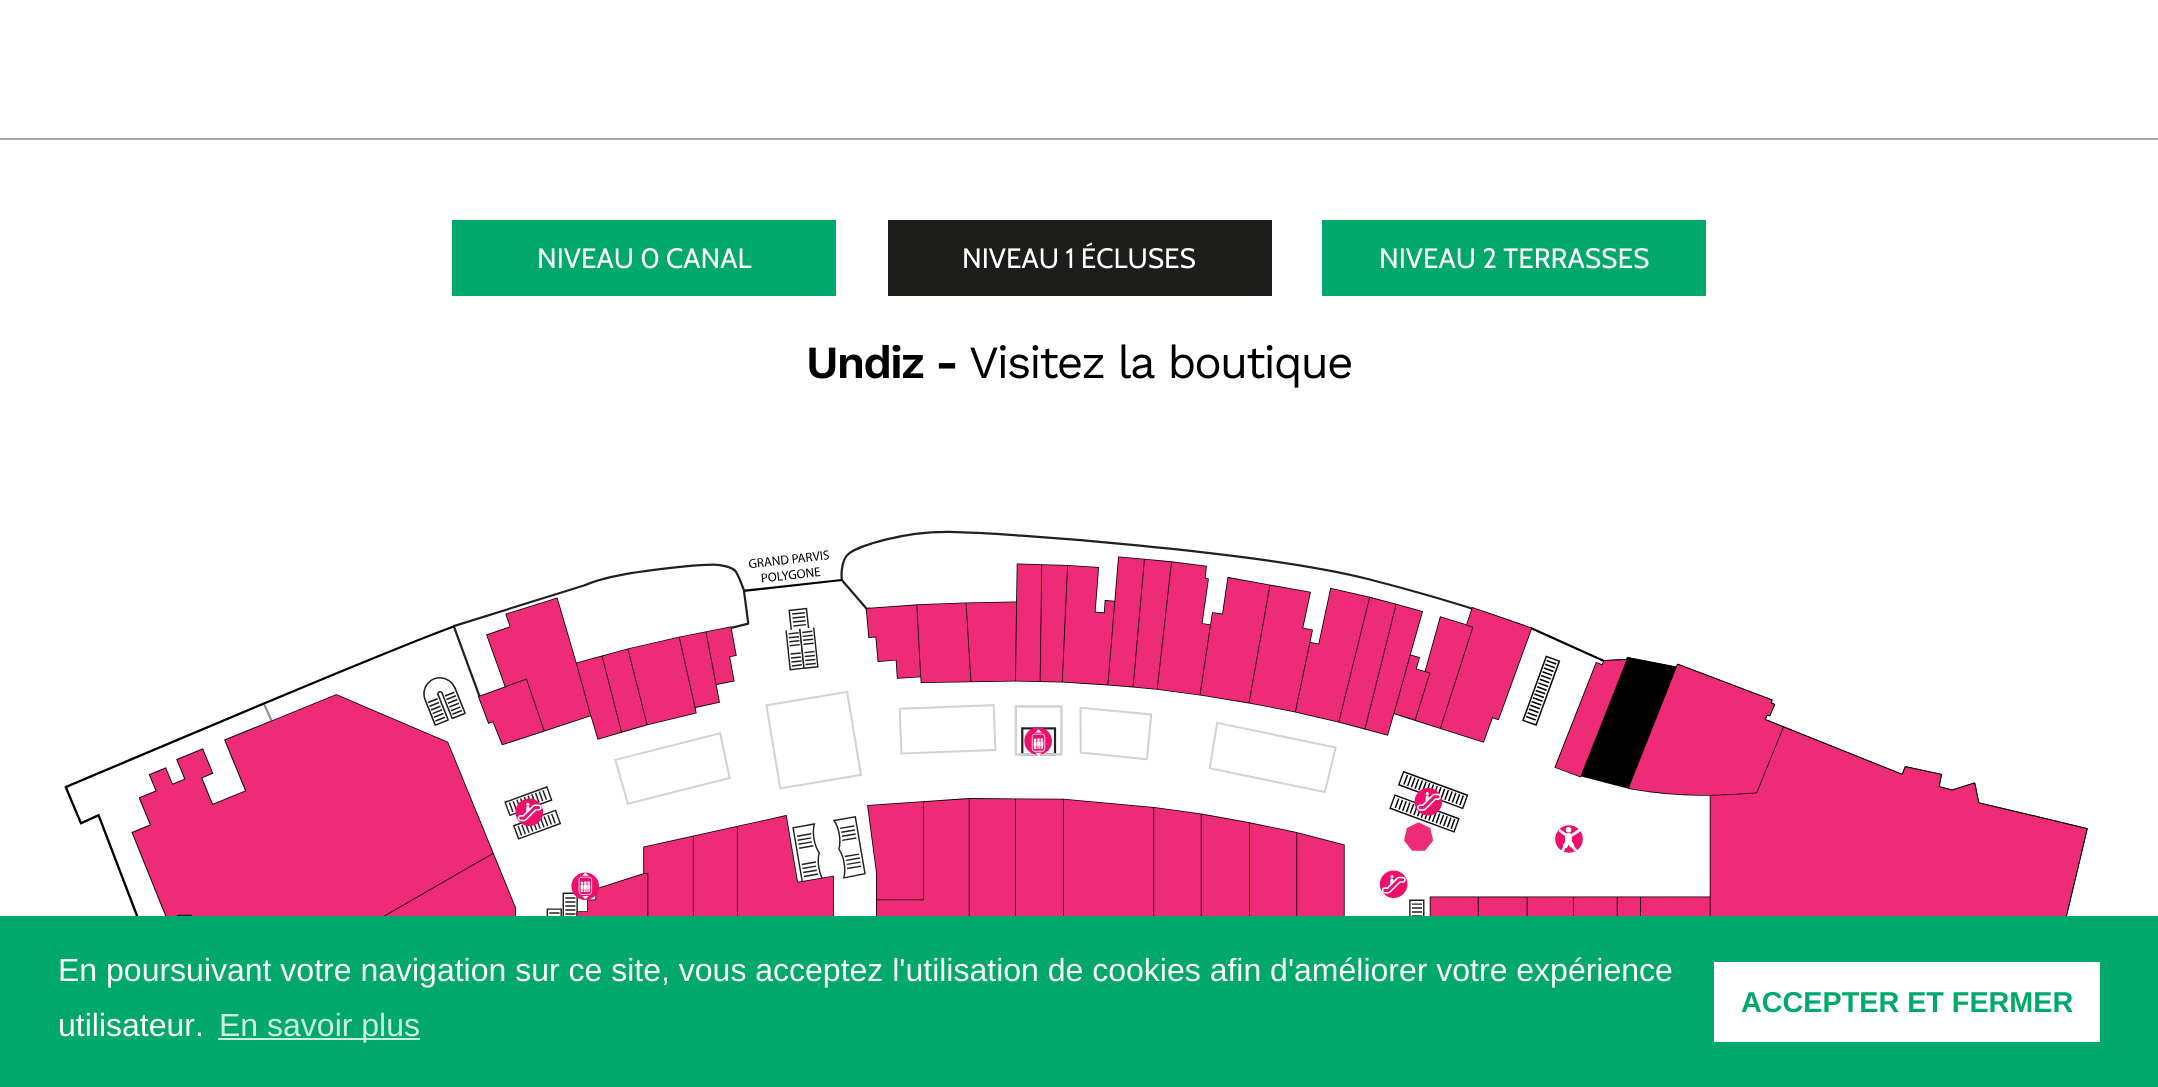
import math
import cairo

surface = cairo.ImageSurface(cairo.FORMAT_RGB24, 2158, 1087)
ctx = cairo.Context(surface)
options = cairo.FontOptions()
options.set_hint_metrics(cairo.HINT_METRICS_OFF)
options.set_hint_style(cairo.HINT_STYLE_NONE)
ctx.set_font_options(options)
ctx.set_miter_limit(4)


def set_color(code):
    ctx.set_source_rgb(*(v / 255 for v in bytes.fromhex(code[-6:])))


def draw_text(x, y, s, family, size, color, bold=False, italic=False):
    ctx.select_font_face(family, cairo.FONT_SLANT_ITALIC if italic else cairo.FONT_SLANT_NORMAL, cairo.FONT_WEIGHT_BOLD if bold else cairo.FONT_WEIGHT_NORMAL)
    ctx.set_font_size(size)
    set_color(color)
    ctx.move_to(x, y)
    ctx.show_text(s)


def draw_spaced(x, y, s, letter, word):
    ctx.move_to(x, y)
    for ch in s:
        ctx.show_text(ch)
        ctx.rel_move_to(letter + word * (ch == ' '), 0)


def fill_rect(x, y, w, h, color):
    set_color(color)
    ctx.rectangle(x, y, w, h)
    ctx.fill()


def draw_image(path, x, y, w, h):
    ctx.save()
    ctx.set_source_surface(cairo.ImageSurface.create_from_png(path), x, y)
    ctx.rectangle(x, y, w, h)
    ctx.fill()
    ctx.restore()


set_color("#ffffff")
ctx.paint()
fill_rect(0, 138, 2158, 2, "#a8a8b0")
fill_rect(452, 220, 384, 76, "#00a86c")
draw_text(537, 268, "NIVEAU 0 CANAL", "Cabin", 28, "#ffffff")
fill_rect(888, 220, 384, 76, "#1d1e1c")
draw_text(962, 268, "NIVEAU 1 ÉCLUSES", "Cabin", 28, "#ffffff")
fill_rect(1322, 220, 384, 76, "#00a86c")
draw_text(1379, 268, "NIVEAU 2 TERRASSES", "Cabin", 28, "#ffffff")
ctx.select_font_face("Work Sans SemiBold")
ctx.set_font_size(46)
set_color("#000000")
draw_spaced(806, 378, "Undiz -", -2, 0)
ctx.select_font_face("Work Sans")
draw_spaced(969, 378, "Visitez la boutique", -2, 0)
draw_image("assets/img1.png", 64, 530, 2024, 386)
fill_rect(0, 916, 2158, 171, "#00a86c")
draw_text(58, 981, "En poursuivant votre navigation sur ce site, vous acceptez l'utilisation de cookies afin d'améliorer votre expérience", "Liberation Sans", 32, "#ffffff")
draw_text(58, 1036, "utilisateur.", "Liberation Sans", 32, "#ffffff")
fill_rect(218, 1038, 202, 2, "#cceee2")
draw_text(219, 1036, "En savoir plus", "Liberation Sans", 32, "#cceee2")
fill_rect(1714, 962, 386, 80, "#ffffff")
draw_text(1741, 1012, "ACCEPTER ET FERMER", "Liberation Sans", 28.75, "#00a86c", bold=True)
surface.write_to_png("output.png")
